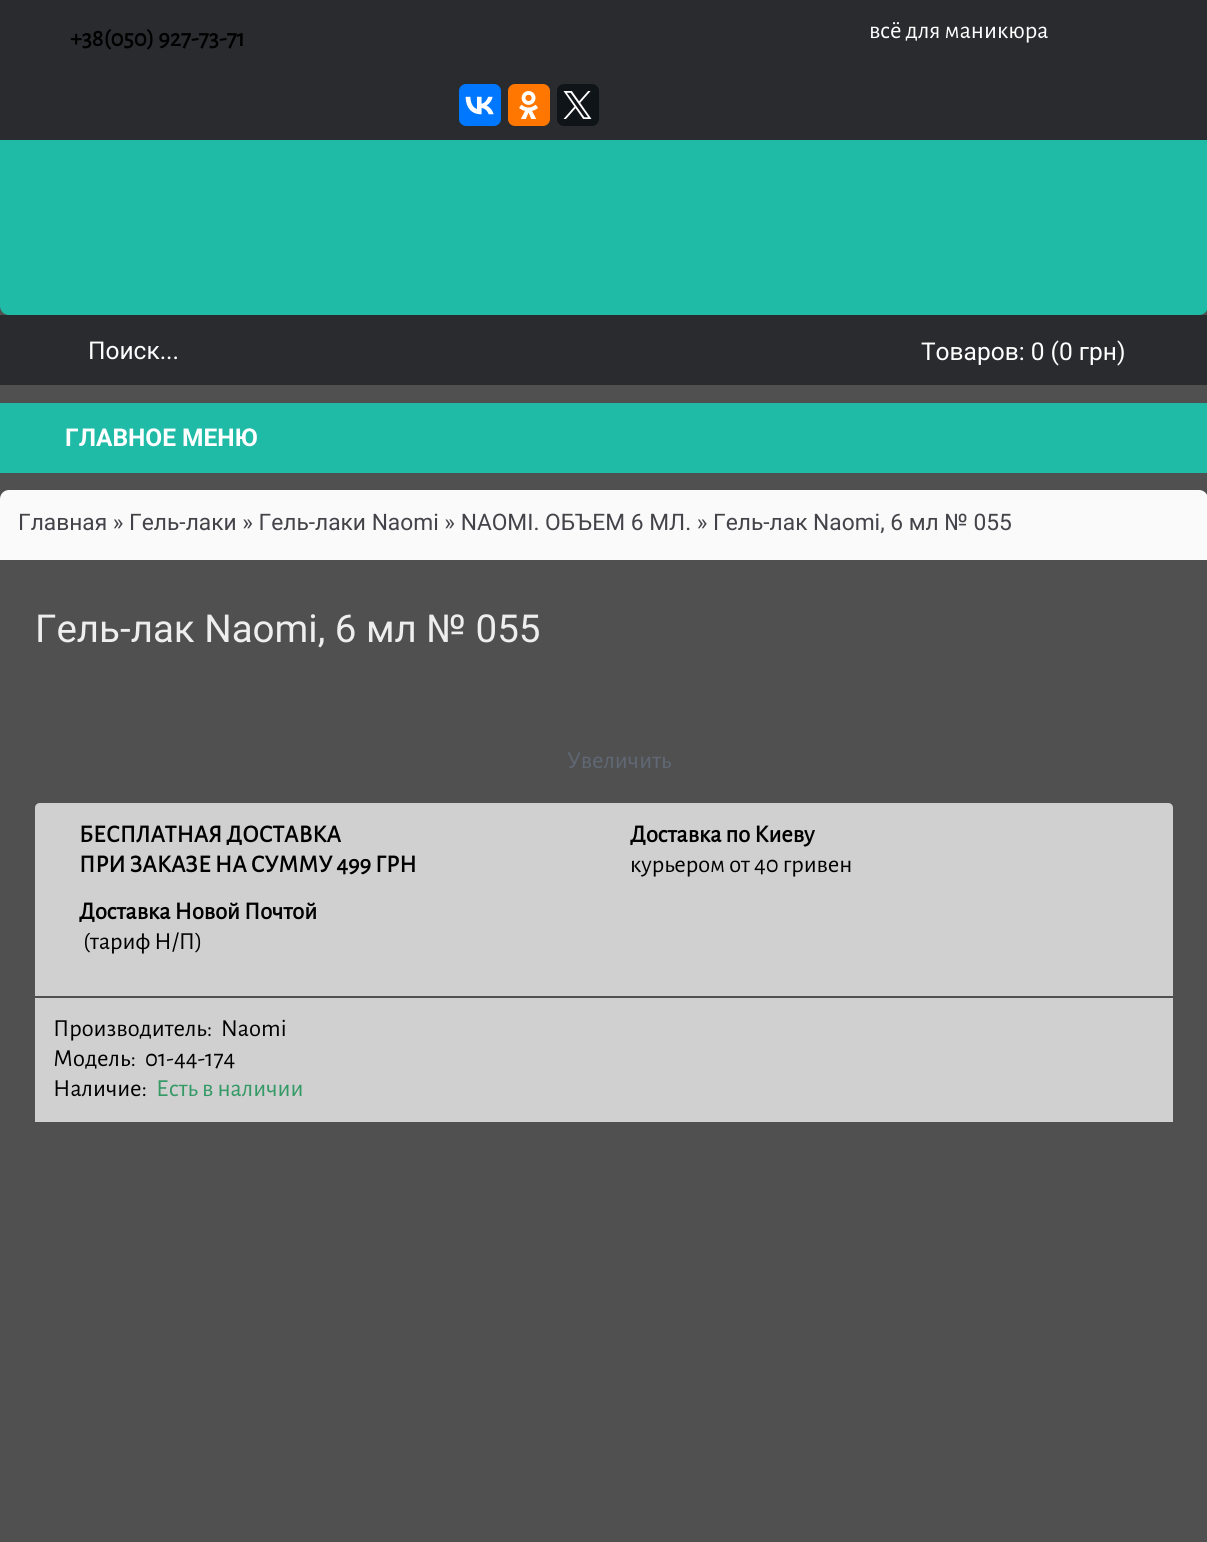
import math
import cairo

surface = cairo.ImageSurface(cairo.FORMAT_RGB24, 1207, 1542)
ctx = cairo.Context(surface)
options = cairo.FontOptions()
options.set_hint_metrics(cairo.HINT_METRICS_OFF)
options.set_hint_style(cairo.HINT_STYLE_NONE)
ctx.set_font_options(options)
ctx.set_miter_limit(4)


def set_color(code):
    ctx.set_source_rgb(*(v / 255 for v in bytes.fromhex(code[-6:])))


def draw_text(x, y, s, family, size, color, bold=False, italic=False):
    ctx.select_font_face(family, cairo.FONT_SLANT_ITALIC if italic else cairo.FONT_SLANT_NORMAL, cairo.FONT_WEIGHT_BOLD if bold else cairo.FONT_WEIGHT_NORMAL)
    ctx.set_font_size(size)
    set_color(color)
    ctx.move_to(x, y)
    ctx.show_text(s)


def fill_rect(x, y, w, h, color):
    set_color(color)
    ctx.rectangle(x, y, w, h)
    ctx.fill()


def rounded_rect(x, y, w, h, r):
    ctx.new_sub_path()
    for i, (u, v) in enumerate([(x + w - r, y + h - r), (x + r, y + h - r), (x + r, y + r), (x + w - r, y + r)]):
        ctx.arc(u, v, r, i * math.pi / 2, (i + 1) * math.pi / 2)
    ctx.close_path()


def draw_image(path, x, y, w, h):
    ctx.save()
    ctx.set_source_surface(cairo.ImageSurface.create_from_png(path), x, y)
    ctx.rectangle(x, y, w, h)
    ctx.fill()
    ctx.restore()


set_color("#505050")
ctx.paint()
fill_rect(0, 0, 1207, 140, "#2a2b2e")
draw_text(70, 46, "+38(050) 927-73-71", "Alegreya Sans", 24.5, "#000000", bold=True)
draw_text(869, 38, "всё для маникюра", "Alegreya Sans", 24.5, "#ffffff")
set_color("#0077ff")
rounded_rect(459, 84, 42, 42, 7)
ctx.fill()
draw_image("assets/img1.png", 465, 96, 29, 19)
set_color("#ff7700")
rounded_rect(508, 84, 42, 42, 7)
ctx.fill()
draw_image("assets/img2.png", 519, 91, 19, 28)
set_color("#0f1419")
rounded_rect(557, 84, 42, 42, 7)
ctx.fill()
draw_image("assets/img3.png", 563, 91, 29, 28)
fill_rect(0, 315, 1207, 70, "#2a2b2e")
draw_text(88, 359, "Поиск...", "Roboto", 24.5, "#ffffff")
draw_text(921, 360, "Товаров: 0 (0 грн)", "Roboto", 24.5, "#ffffff")
fill_rect(0, 403, 1207, 70, "#1fbba6")
draw_text(65, 446, "ГЛАВНОЕ МЕНЮ", "Roboto", 24.5, "#ffffff", bold=True)
set_color("#1fbba6")
ctx.new_path()
ctx.move_to(0, 140)
ctx.line_to(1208, 140)
ctx.line_to(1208, 306)
ctx.curve_to(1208, 311, 1204, 315, 1199, 315)
ctx.line_to(9, 315)
ctx.curve_to(4, 315, 0, 311, 0, 306)
ctx.close_path()
ctx.fill()
set_color("#fafafa")
ctx.new_path()
ctx.move_to(9, 490)
ctx.line_to(1199, 490)
ctx.curve_to(1204, 490, 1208, 494, 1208, 499)
ctx.line_to(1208, 560)
ctx.line_to(0, 560)
ctx.line_to(0, 499)
ctx.curve_to(0, 494, 4, 490, 9, 490)
ctx.close_path()
ctx.fill()
draw_text(18, 530, "Главная » Гель-лаки » Гель-лаки Naomi » NAOMI. ОБЪЕМ 6 МЛ. » Гель-лак Naomi, 6 мл № 055", "Roboto", 22.75, "#444349")
draw_text(35, 642, "Гель-лак Naomi, 6 мл № 055", "Roboto", 38.5, "#eeeeee")
draw_text(567, 768, "Увеличить", "Alegreya Sans", 24.5, "#5f6874")
set_color("#d0d0d0")
ctx.new_path()
ctx.move_to(40, 803)
ctx.line_to(1168, 803)
ctx.curve_to(1171, 803, 1173, 805, 1173, 808)
ctx.line_to(1173, 996)
ctx.line_to(35, 996)
ctx.line_to(35, 808)
ctx.curve_to(35, 805, 37, 803, 40, 803)
ctx.close_path()
ctx.fill()
draw_text(79, 842, "БЕСПЛАТНАЯ ДОСТАВКА", "Alegreya Sans", 24.5, "#000000", bold=True)
draw_text(79, 872, "ПРИ ЗАКАЗЕ НА СУММУ 499 ГРН", "Alegreya Sans", 24.5, "#000000", bold=True)
draw_text(630, 842, "Доставка по Киеву", "Alegreya Sans", 24.5, "#000000", bold=True)
draw_text(630, 872, "курьером от 40 гривен", "Alegreya Sans", 24.5, "#000000")
draw_text(79, 919, "Доставка Новой Почтой", "Alegreya Sans", 24.5, "#000000", bold=True)
draw_text(83, 949, "(тариф Н/П)", "Alegreya Sans", 24.5, "#000000")
fill_rect(35, 998, 1138, 124, "#d0d0d0")
draw_text(53, 1036, "Производитель:", "Alegreya Sans", 24.5, "#000000")
draw_text(221, 1036, "Naomi", "Alegreya Sans", 24.5, "#000000")
draw_text(53, 1066, "Модель:", "Alegreya Sans", 24.5, "#000000")
draw_text(145, 1066, "01-44-174", "Alegreya Sans", 24.5, "#000000")
draw_text(53, 1096, "Наличие:", "Alegreya Sans", 24.5, "#000000")
draw_text(156, 1096, "Есть в наличии", "Alegreya Sans", 24.5, "#339965")
surface.write_to_png("output.png")
